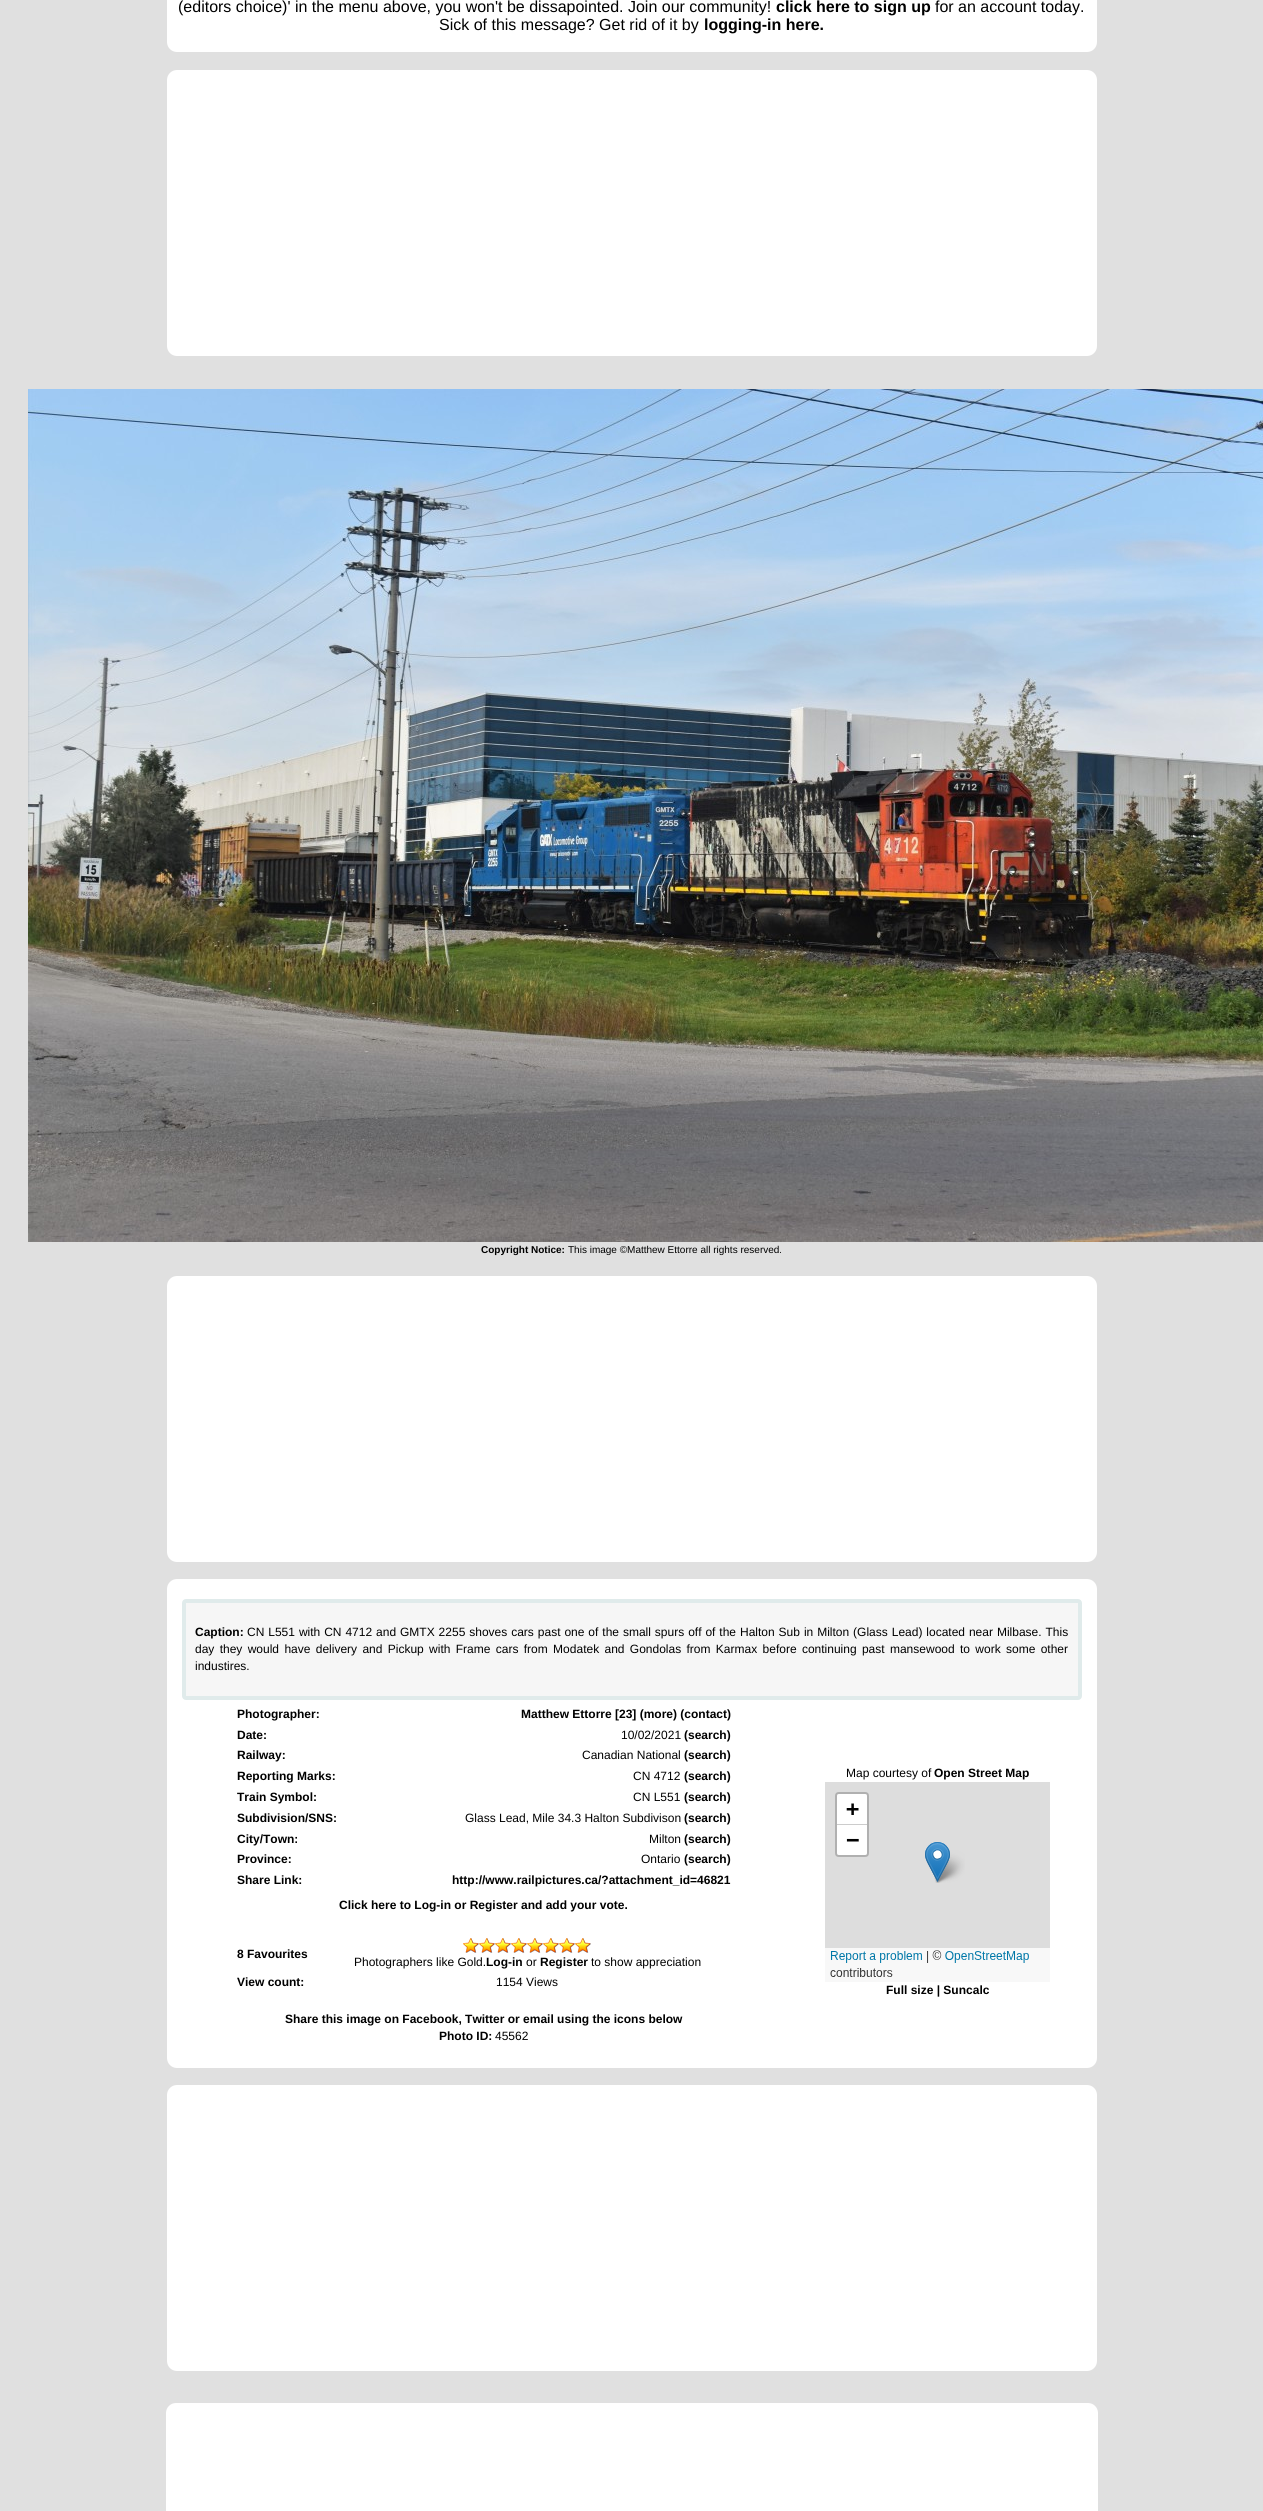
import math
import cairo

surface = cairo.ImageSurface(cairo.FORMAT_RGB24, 1263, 2511)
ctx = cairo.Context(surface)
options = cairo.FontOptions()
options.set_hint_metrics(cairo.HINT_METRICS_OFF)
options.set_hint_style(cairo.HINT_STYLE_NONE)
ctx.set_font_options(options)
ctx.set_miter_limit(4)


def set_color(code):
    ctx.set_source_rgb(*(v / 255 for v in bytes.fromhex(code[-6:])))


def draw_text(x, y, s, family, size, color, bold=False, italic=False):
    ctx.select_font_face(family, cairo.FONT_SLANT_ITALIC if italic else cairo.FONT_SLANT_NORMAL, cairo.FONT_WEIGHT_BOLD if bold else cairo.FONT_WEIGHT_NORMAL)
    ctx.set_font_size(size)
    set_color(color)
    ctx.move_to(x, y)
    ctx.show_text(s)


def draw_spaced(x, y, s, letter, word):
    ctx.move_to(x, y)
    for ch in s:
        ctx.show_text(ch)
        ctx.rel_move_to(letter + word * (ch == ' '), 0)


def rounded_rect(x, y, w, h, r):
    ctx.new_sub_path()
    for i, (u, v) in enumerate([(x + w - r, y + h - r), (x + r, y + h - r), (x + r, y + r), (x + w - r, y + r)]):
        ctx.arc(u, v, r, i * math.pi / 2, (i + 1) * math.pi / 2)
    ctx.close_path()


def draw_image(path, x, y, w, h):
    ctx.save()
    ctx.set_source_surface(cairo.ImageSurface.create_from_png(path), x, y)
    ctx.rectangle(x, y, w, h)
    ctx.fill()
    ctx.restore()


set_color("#e0e0e0")
ctx.paint()
set_color("#ffffff")
rounded_rect(167, -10, 930, 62, 10)
ctx.fill()
draw_text(178, 12, "(editors choice)' in the menu above, you won't be dissapointed. Join our community!", "Liberation Sans", 16, "#000000")
draw_text(776, 12, "click here to sign up", "Liberation Sans", 16, "#000000", bold=True)
draw_text(935, 12, "for an account today.", "Liberation Sans", 16, "#000000")
draw_text(439, 30, "Sick of this message? Get rid of it by", "Liberation Sans", 16, "#000000")
draw_text(704, 30, "logging-in here.", "Liberation Sans", 16, "#000000", bold=True)
set_color("#ffffff")
rounded_rect(167, 70, 930, 286, 10)
ctx.fill()
draw_image("assets/img1.png", 28, 389, 1235, 853)
draw_text(481, 1253, "Copyright Notice:", "Liberation Sans", 10, "#000000", bold=True)
draw_text(568, 1253, "This image ©Matthew Ettorre all rights reserved.", "Liberation Sans", 10, "#000000")
set_color("#ffffff")
rounded_rect(167, 1276, 930, 286, 10)
ctx.fill()
rounded_rect(167, 1579, 930, 489, 10)
ctx.fill()
set_color("#f6f6f6")
rounded_rect(184, 1601, 896, 97, 2)
ctx.fill_preserve()
set_color("#e0ebeb")
ctx.set_line_width(4)
ctx.stroke()
draw_text(195, 1636, "Caption:", "Liberation Sans", 12, "#000000", bold=True)
ctx.select_font_face("Liberation Sans")
draw_spaced(247, 1636, "CN L551 with CN 4712 and GMTX 2255 shoves cars past one of the small spurs off of the Halton Sub in Milton (Glass Lead) located near Milbase. This", 0, 0.6)
draw_spaced(195, 1653, "day they would have delivery and Pickup with Frame cars from Modatek and Gondolas from Karmax before continuing past mansewood to work some other", 0, 2)
draw_text(195, 1670, "industires.", "Liberation Sans", 12, "#000000")
draw_text(237, 1718, "Photographer:", "Liberation Sans", 12, "#000000", bold=True)
draw_text(521, 1718, "Matthew Ettorre [23] (more) (contact)", "Liberation Sans", 12, "#000000", bold=True)
draw_text(237, 1739, "Date:", "Liberation Sans", 12, "#000000", bold=True)
draw_text(621, 1739, "10/02/2021", "Liberation Sans", 12, "#000000")
draw_text(684, 1739, "(search)", "Liberation Sans", 12, "#000000", bold=True)
draw_text(237, 1759, "Railway:", "Liberation Sans", 12, "#000000", bold=True)
draw_text(582, 1759, "Canadian National", "Liberation Sans", 12, "#000000")
draw_text(684, 1759, "(search)", "Liberation Sans", 12, "#000000", bold=True)
draw_text(237, 1780, "Reporting Marks:", "Liberation Sans", 12, "#000000", bold=True)
draw_text(633, 1780, "CN 4712", "Liberation Sans", 12, "#000000")
draw_text(684, 1780, "(search)", "Liberation Sans", 12, "#000000", bold=True)
draw_text(237, 1801, "Train Symbol:", "Liberation Sans", 12, "#000000", bold=True)
draw_text(633, 1801, "CN L551", "Liberation Sans", 12, "#000000")
draw_text(684, 1801, "(search)", "Liberation Sans", 12, "#000000", bold=True)
draw_text(237, 1822, "Subdivision/SNS:", "Liberation Sans", 12, "#000000", bold=True)
draw_text(465, 1822, "Glass Lead, Mile 34.3 Halton Subdivison", "Liberation Sans", 12, "#000000")
draw_text(684, 1822, "(search)", "Liberation Sans", 12, "#000000", bold=True)
draw_text(237, 1843, "City/Town:", "Liberation Sans", 12, "#000000", bold=True)
draw_text(649, 1843, "Milton", "Liberation Sans", 12, "#000000")
draw_text(684, 1843, "(search)", "Liberation Sans", 12, "#000000", bold=True)
draw_text(237, 1863, "Province:", "Liberation Sans", 12, "#000000", bold=True)
draw_text(641, 1863, "Ontario", "Liberation Sans", 12, "#000000")
draw_text(684, 1863, "(search)", "Liberation Sans", 12, "#000000", bold=True)
draw_text(237, 1884, "Share Link:", "Liberation Sans", 12, "#000000", bold=True)
draw_text(452, 1884, "http://www.railpictures.ca/?attachment_id=46821", "Liberation Sans", 12, "#000000", bold=True)
draw_text(339, 1909, "Click here to Log-in or Register and add your vote.", "Liberation Sans", 12, "#000000", bold=True)
draw_text(237, 1958, "8 Favourites", "Liberation Sans", 12, "#000000", bold=True)
draw_image("assets/img2.png", 463, 1938, 16, 15)
draw_image("assets/img2.png", 479, 1938, 16, 15)
draw_image("assets/img2.png", 495, 1938, 16, 15)
draw_image("assets/img2.png", 511, 1938, 16, 15)
draw_image("assets/img2.png", 527, 1938, 16, 15)
draw_image("assets/img2.png", 543, 1938, 16, 15)
draw_image("assets/img2.png", 559, 1938, 16, 15)
draw_image("assets/img2.png", 575, 1938, 16, 15)
draw_text(354, 1966, "Photographers like Gold.", "Liberation Sans", 12, "#000000")
draw_text(486, 1966, "Log-in", "Liberation Sans", 12, "#000000", bold=True)
draw_text(526, 1966, "or", "Liberation Sans", 12, "#000000")
draw_text(540, 1966, "Register", "Liberation Sans", 12, "#000000", bold=True)
draw_text(591, 1966, "to show appreciation", "Liberation Sans", 12, "#000000")
draw_text(237, 1986, "View count:", "Liberation Sans", 12, "#000000", bold=True)
draw_text(496, 1986, "1154 Views", "Liberation Sans", 12, "#000000")
draw_text(285, 2023, "Share this image on Facebook, Twitter or email using the icons below", "Liberation Sans", 12, "#000000", bold=True)
draw_text(439, 2040, "Photo ID:", "Liberation Sans", 12, "#000000", bold=True)
draw_text(495, 2040, "45562", "Liberation Sans", 12, "#000000")
draw_text(846, 1777, "Map courtesy of", "Liberation Sans", 12, "#000000")
draw_text(934, 1777, "Open Street Map", "Liberation Sans", 12, "#000000", bold=True)
draw_image("assets/img3.png", 825, 1782, 225, 200)
draw_text(886, 1994, "Full size | Suncalc", "Liberation Sans", 12, "#000000", bold=True)
set_color("#ffffff")
rounded_rect(167, 2085, 930, 286, 10)
ctx.fill()
rounded_rect(166, 2403, 932, 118, 10)
ctx.fill()
surface.write_to_png("output.png")
